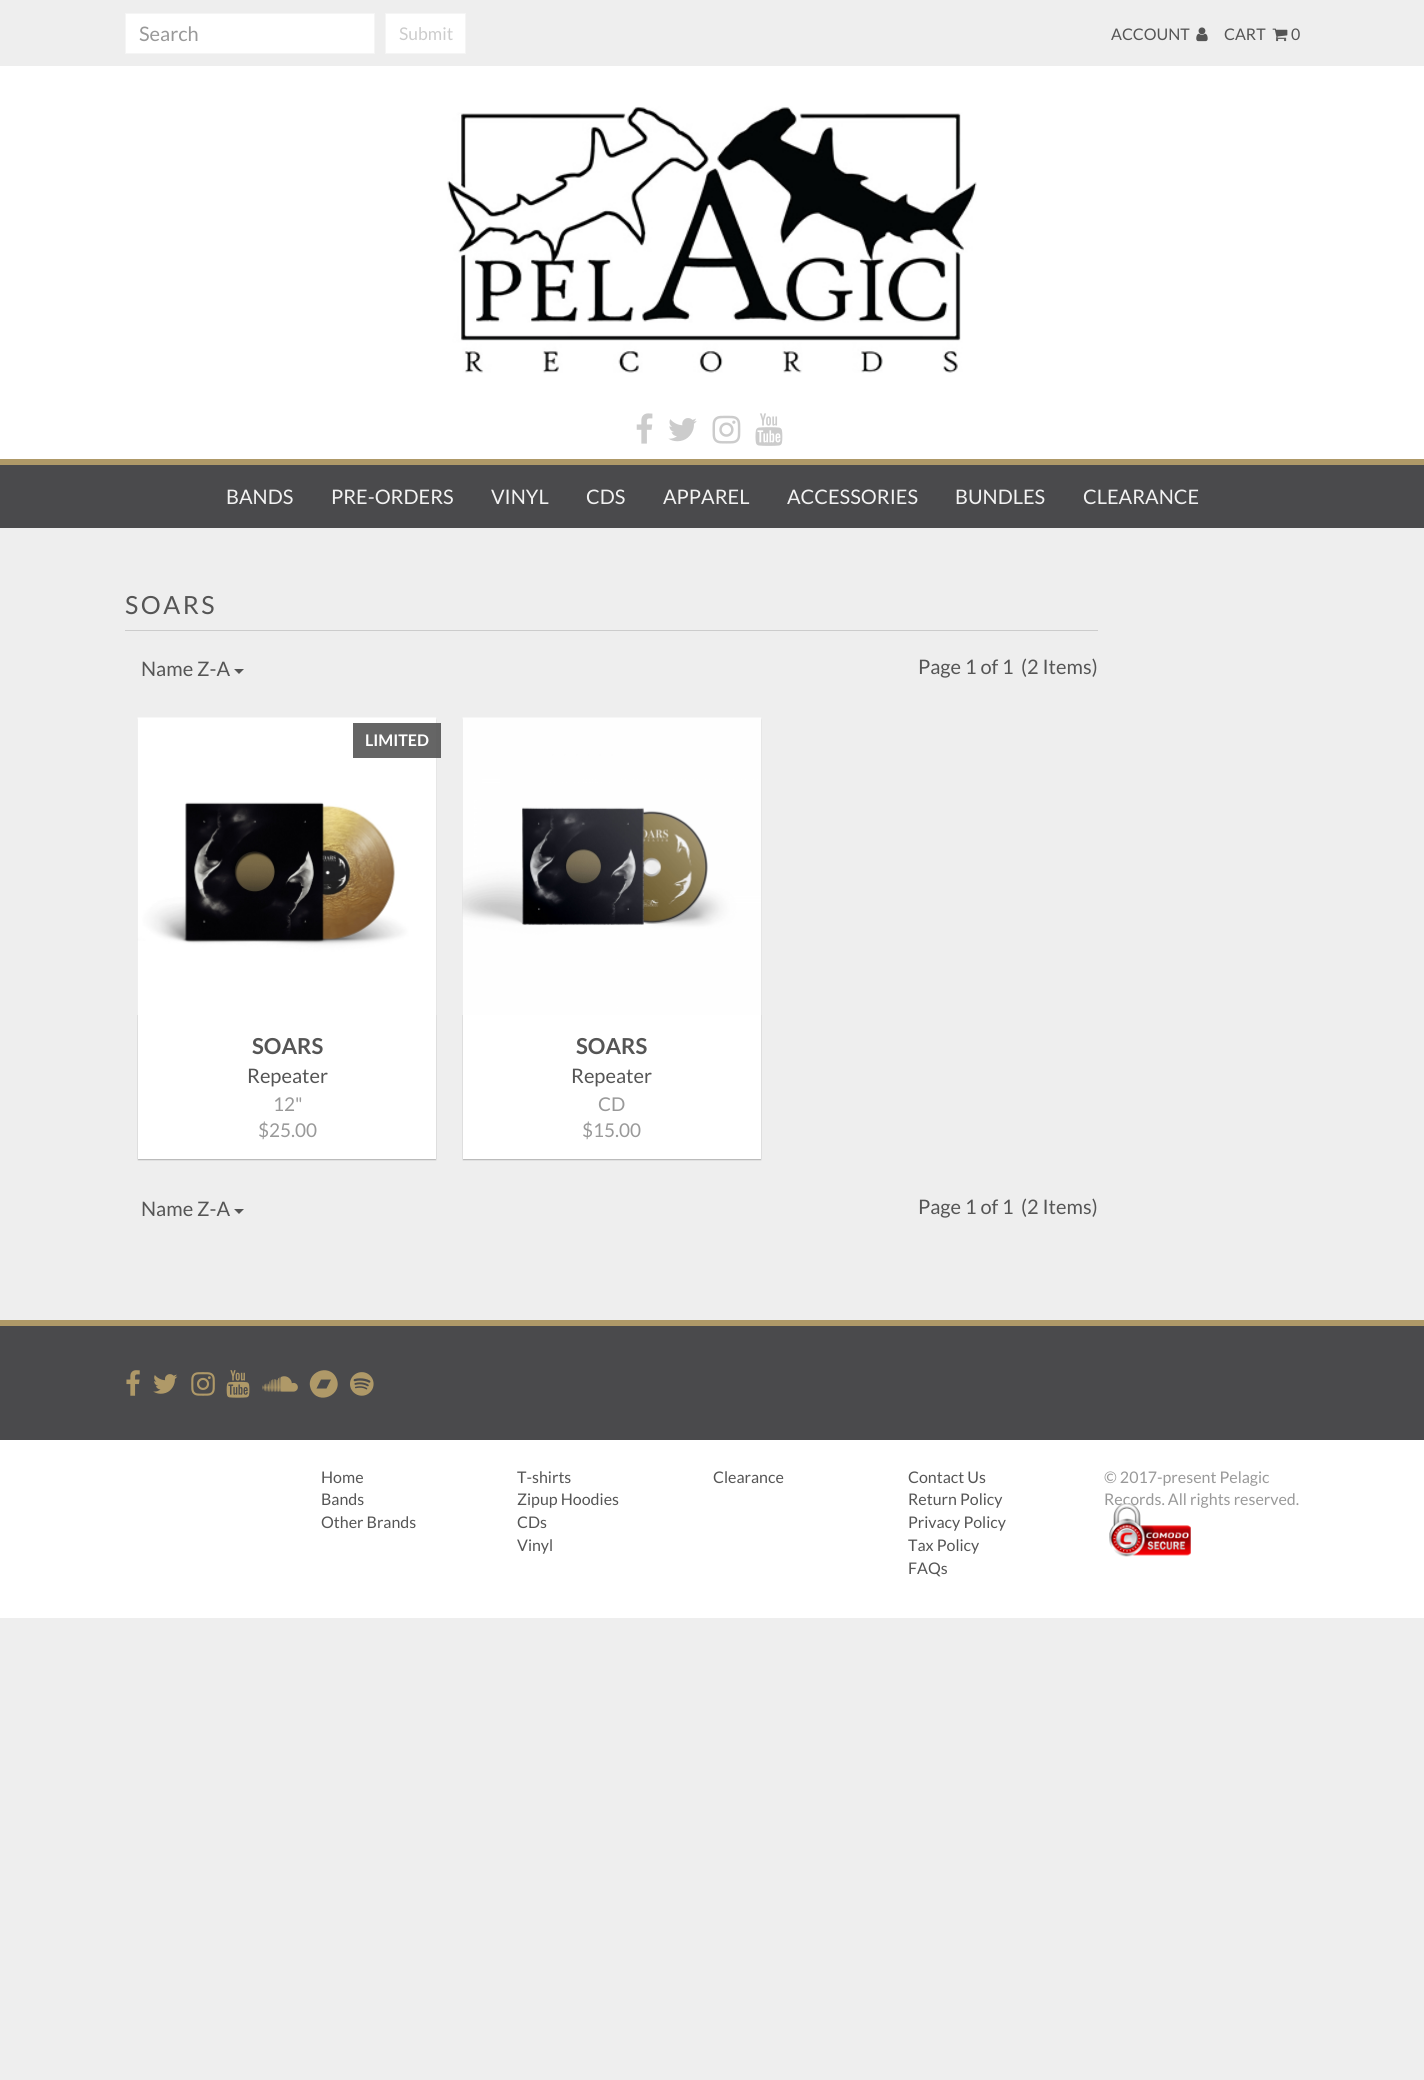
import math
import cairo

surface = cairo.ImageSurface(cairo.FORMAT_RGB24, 1424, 2080)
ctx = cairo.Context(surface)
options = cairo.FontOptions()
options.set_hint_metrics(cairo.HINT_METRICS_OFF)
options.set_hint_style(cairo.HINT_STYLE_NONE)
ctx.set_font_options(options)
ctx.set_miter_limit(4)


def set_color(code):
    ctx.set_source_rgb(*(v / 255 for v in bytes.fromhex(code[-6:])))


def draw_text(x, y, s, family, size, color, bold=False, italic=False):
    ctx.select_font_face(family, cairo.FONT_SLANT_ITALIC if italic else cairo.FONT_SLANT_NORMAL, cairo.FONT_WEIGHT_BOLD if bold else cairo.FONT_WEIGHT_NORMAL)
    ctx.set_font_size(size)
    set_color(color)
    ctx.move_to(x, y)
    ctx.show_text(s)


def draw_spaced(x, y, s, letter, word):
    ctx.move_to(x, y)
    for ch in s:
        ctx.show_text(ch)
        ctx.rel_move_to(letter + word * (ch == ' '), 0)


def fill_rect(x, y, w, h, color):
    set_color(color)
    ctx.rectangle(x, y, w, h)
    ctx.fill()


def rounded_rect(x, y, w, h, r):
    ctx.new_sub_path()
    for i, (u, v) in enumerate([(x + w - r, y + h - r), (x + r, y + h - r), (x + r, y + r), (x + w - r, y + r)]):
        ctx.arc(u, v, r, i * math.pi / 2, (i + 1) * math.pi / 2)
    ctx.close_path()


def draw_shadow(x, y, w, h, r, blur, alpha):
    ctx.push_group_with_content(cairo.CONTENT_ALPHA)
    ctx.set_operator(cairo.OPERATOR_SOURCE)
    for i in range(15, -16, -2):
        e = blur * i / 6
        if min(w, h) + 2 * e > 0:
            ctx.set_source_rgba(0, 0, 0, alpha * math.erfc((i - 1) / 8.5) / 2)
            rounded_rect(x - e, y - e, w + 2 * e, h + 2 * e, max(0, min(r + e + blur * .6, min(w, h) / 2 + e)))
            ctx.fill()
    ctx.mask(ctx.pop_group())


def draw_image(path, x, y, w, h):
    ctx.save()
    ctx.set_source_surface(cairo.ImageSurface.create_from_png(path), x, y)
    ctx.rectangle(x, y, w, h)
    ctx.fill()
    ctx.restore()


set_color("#eeeeee")
ctx.paint()
set_color("#ffffff")
ctx.rectangle(125.5, 13.5, 249, 40)
ctx.fill_preserve()
set_color("#f5f5f5")
ctx.set_line_width(1)
ctx.stroke()
draw_text(139, 41, "Search", "Lato", 20, "#999999")
set_color("#ffffff")
ctx.rectangle(385.5, 13.5, 80, 40)
ctx.fill_preserve()
set_color("#f5f5f5")
ctx.stroke()
draw_text(399, 40, "Submit", "Lato", 17.5, "#cccccc")
draw_text(1111, 40, "ACCOUNT", "Lato", 16, "#555555")
draw_image("assets/img1.png", 1196, 27, 12, 15)
draw_text(1224, 40, "CART", "Lato", 16, "#555555")
draw_image("assets/img2.png", 1272, 28, 16, 14)
draw_text(1291, 40, "0", "Lato", 16, "#555555")
fill_rect(0, 66, 1424, 393, "#ffffff")
draw_image("assets/img3.png", 447, 106, 530, 267)
draw_image("assets/img4.png", 636, 413, 17, 31)
draw_image("assets/img5.png", 668, 418, 29, 24)
draw_image("assets/img6.png", 712, 415, 29, 29)
draw_image("assets/img7.png", 755, 413, 28, 33)
fill_rect(0, 465, 1424, 63, "#4a4a4c")
fill_rect(0, 459, 1424, 6, "#af9968")
draw_text(226, 504, "BANDS", "Lato", 20, "#f2f2f2")
draw_text(331, 504, "PRE-ORDERS", "Lato", 20, "#f2f2f2")
draw_text(491, 504, "VINYL", "Lato", 20, "#f2f2f2")
draw_text(586, 504, "CDS", "Lato", 20, "#f2f2f2")
draw_text(663, 504, "APPAREL", "Lato", 20, "#f2f2f2")
draw_text(787, 504, "ACCESSORIES", "Lato", 20, "#f2f2f2")
draw_text(955, 504, "BUNDLES", "Lato", 20, "#f2f2f2")
draw_text(1083, 504, "CLEARANCE", "Lato", 20, "#f2f2f2")
fill_rect(125, 630, 973, 1, "#cccccc")
ctx.set_font_size(25)
set_color("#555555")
draw_spaced(125, 614, "SOARS", 2.5, 0)
draw_text(141, 676, "Name Z-A", "Lato", 20, "#555555")
ctx.new_path()
ctx.move_to(234, 669)
ctx.line_to(244, 669)
ctx.line_to(239, 674)
ctx.close_path()
ctx.fill()
draw_text(918, 674, "Page 1 of 1", "Lato", 20, "#555555")
draw_text(1021, 674, "(2 Items)", "Lato", 20, "#555555")
set_color("#000000")
draw_shadow(138, 719, 298, 441, 0, 0.5, 0.25)
fill_rect(138, 1015, 298, 144, "#ffffff")
draw_image("assets/img8.png", 137, 717, 300, 298)
ctx.set_source_rgba(0.333, 0.333, 0.333, 0.9)
ctx.rectangle(353, 723, 88, 35)
ctx.fill()
draw_text(365, 746, "LIMITED", "Lato", 16, "#ffffff", bold=True)
draw_text(252, 1054, "SOARS", "Lato", 22, "#555555", bold=True)
draw_text(247, 1083, "Repeater", "Lato", 20, "#555555")
draw_text(273, 1111, "12\"", "Lato", 19, "#999999")
draw_text(258, 1137, "$25.00", "Lato", 19, "#999999")
set_color("#000000")
draw_shadow(463, 719, 298, 441, 0, 0.5, 0.25)
fill_rect(463, 1015, 298, 144, "#ffffff")
draw_image("assets/img9.png", 462, 717, 300, 298)
draw_text(576, 1054, "SOARS", "Lato", 22, "#555555", bold=True)
draw_text(571, 1083, "Repeater", "Lato", 20, "#555555")
draw_text(598, 1111, "CD", "Lato", 19, "#999999")
draw_text(582, 1137, "$15.00", "Lato", 19, "#999999")
draw_text(141, 1216, "Name Z-A", "Lato", 20, "#555555")
ctx.new_path()
ctx.move_to(234, 1209)
ctx.line_to(244, 1209)
ctx.line_to(239, 1214)
ctx.close_path()
ctx.fill()
draw_text(918, 1214, "Page 1 of 1", "Lato", 20, "#555555")
draw_text(1021, 1214, "(2 Items)", "Lato", 20, "#555555")
fill_rect(0, 1326, 1424, 114, "#4a4a4c")
fill_rect(0, 1320, 1424, 6, "#af9968")
draw_image("assets/img10.png", 126, 1370, 14, 26)
draw_image("assets/img11.png", 153, 1374, 25, 20)
draw_image("assets/img12.png", 191, 1372, 24, 24)
draw_image("assets/img13.png", 226, 1370, 24, 28)
draw_image("assets/img14.png", 262, 1376, 36, 16)
ctx.new_path()
ctx.move_to(326.5, 1388.5)
ctx.line_to(331, 1379.5)
ctx.line_to(321, 1379.5)
ctx.line_to(316.5, 1388.5)
ctx.close_path()
ctx.move_to(336.5, 1378.5)
ctx.curve_to(343.5, 1395, 318, 1406, 311, 1389.5)
ctx.curve_to(304, 1372.5, 329.5, 1362, 336.5, 1378.5)
ctx.close_path()
ctx.fill()
draw_image("assets/img15.png", 350, 1372, 24, 24)
fill_rect(0, 1440, 1424, 178, "#ffffff")
draw_text(321, 1483, "Home", "Lato", 16, "#555555")
draw_text(321, 1505, "Bands", "Lato", 16, "#555555")
draw_text(321, 1528, "Other Brands", "Lato", 16, "#555555")
draw_text(517, 1483, "T-shirts", "Lato", 16, "#555555")
draw_text(517, 1505, "Zipup Hoodies", "Lato", 16, "#555555")
draw_text(517, 1528, "CDs", "Lato", 16, "#555555")
draw_text(517, 1551, "Vinyl", "Lato", 16, "#555555")
draw_text(713, 1483, "Clearance", "Lato", 16, "#555555")
draw_text(908, 1483, "Contact Us", "Lato", 16, "#555555")
draw_text(908, 1505, "Return Policy", "Lato", 16, "#555555")
draw_text(908, 1528, "Privacy Policy", "Lato", 16, "#555555")
draw_text(908, 1551, "Tax Policy", "Lato", 16, "#555555")
draw_text(908, 1574, "FAQs", "Lato", 16, "#555555")
draw_text(1104, 1483, "© 2017-present Pelagic", "Lato", 16, "#999999")
draw_text(1104, 1505, "Records. All rights reserved.", "Lato", 16, "#999999")
draw_image("assets/img16.png", 1109, 1503, 82, 54)
surface.write_to_png("output.png")
